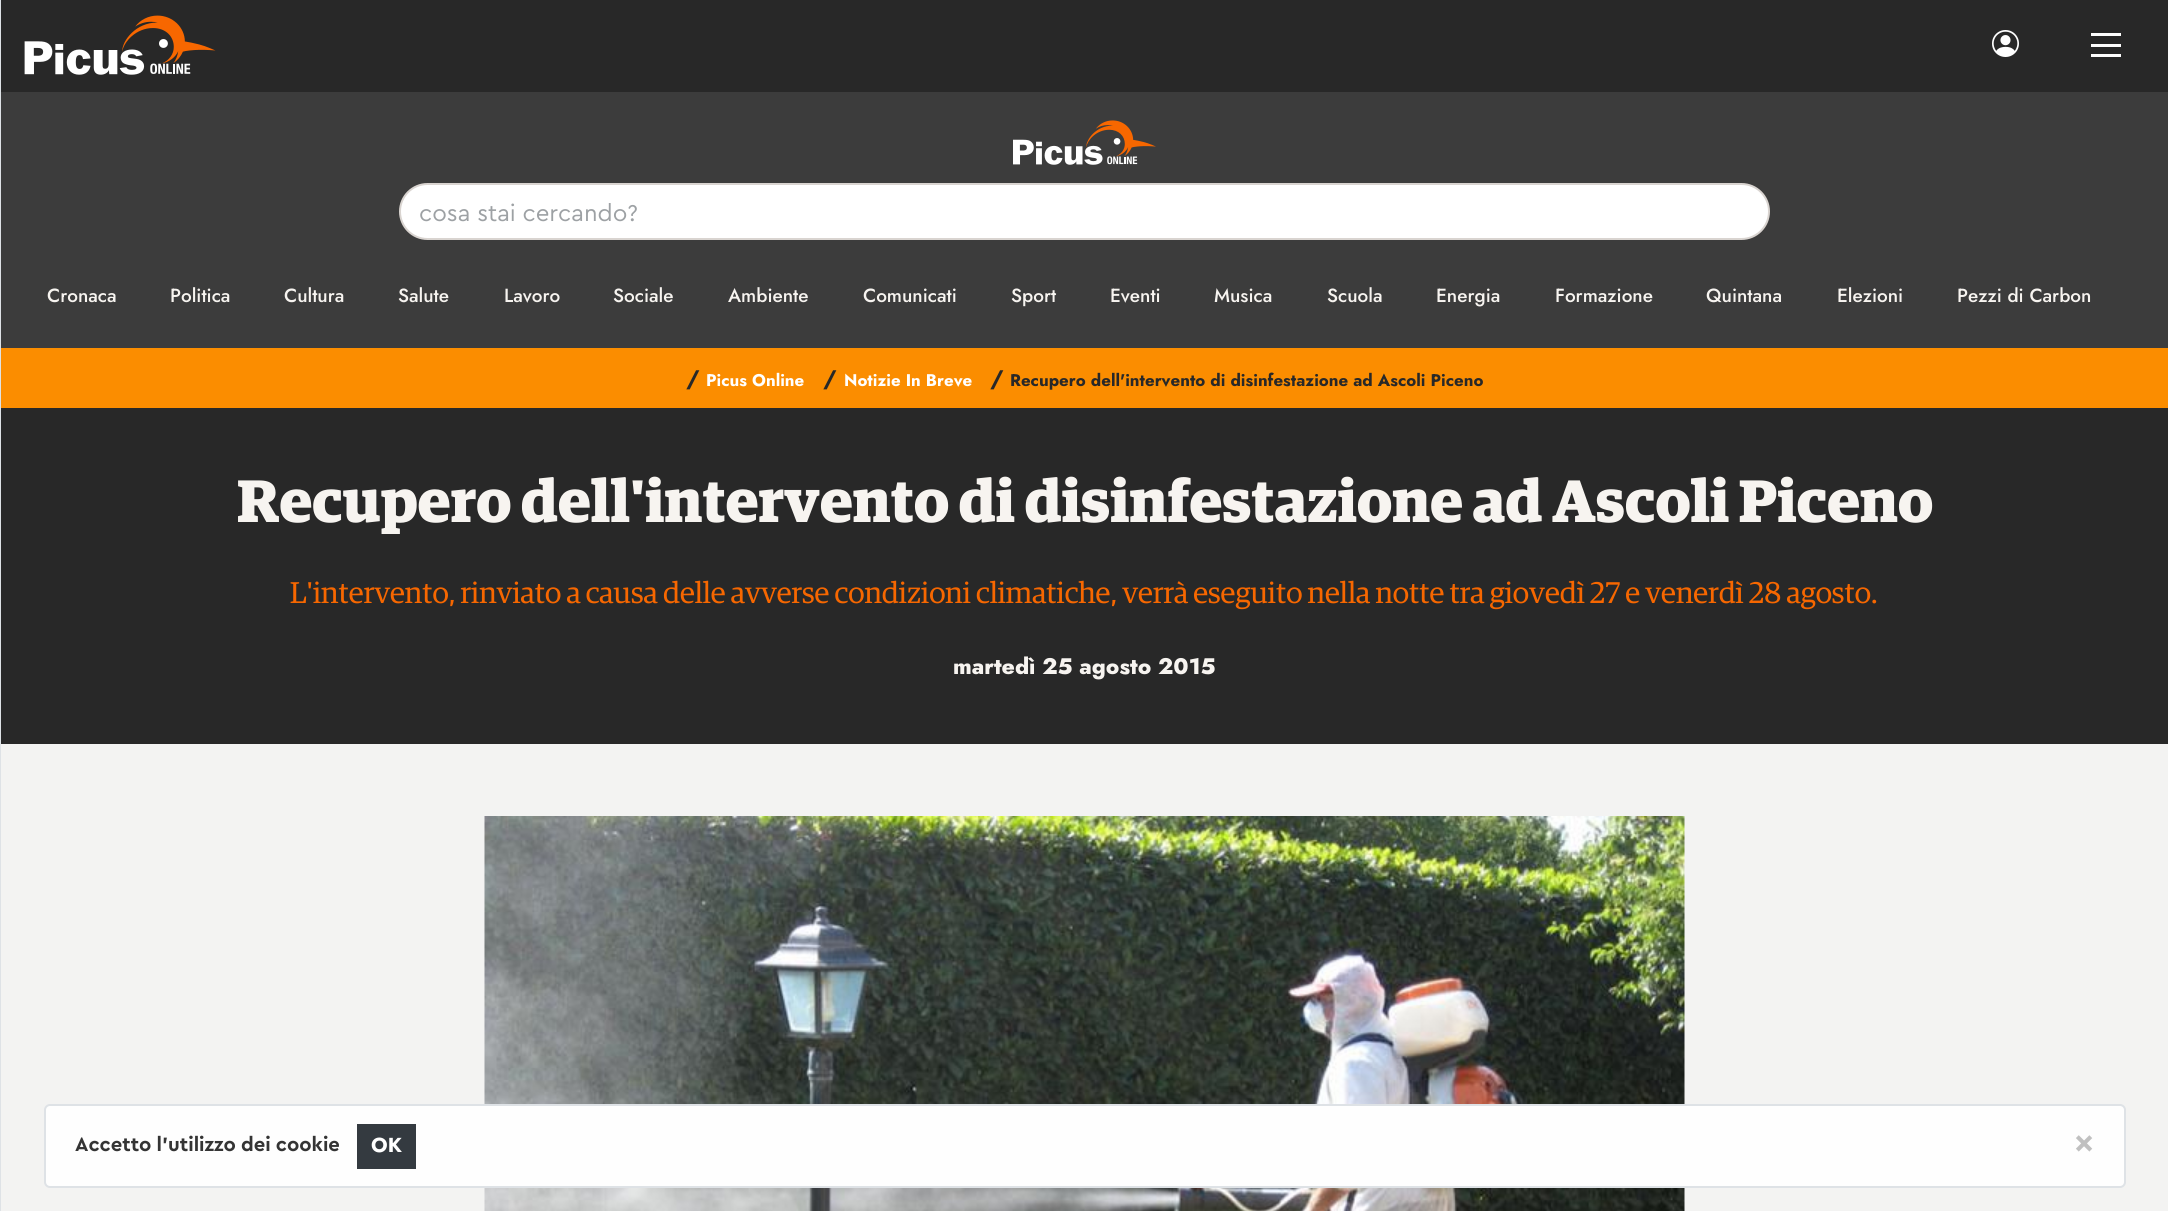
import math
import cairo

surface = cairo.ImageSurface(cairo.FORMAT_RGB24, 2168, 1211)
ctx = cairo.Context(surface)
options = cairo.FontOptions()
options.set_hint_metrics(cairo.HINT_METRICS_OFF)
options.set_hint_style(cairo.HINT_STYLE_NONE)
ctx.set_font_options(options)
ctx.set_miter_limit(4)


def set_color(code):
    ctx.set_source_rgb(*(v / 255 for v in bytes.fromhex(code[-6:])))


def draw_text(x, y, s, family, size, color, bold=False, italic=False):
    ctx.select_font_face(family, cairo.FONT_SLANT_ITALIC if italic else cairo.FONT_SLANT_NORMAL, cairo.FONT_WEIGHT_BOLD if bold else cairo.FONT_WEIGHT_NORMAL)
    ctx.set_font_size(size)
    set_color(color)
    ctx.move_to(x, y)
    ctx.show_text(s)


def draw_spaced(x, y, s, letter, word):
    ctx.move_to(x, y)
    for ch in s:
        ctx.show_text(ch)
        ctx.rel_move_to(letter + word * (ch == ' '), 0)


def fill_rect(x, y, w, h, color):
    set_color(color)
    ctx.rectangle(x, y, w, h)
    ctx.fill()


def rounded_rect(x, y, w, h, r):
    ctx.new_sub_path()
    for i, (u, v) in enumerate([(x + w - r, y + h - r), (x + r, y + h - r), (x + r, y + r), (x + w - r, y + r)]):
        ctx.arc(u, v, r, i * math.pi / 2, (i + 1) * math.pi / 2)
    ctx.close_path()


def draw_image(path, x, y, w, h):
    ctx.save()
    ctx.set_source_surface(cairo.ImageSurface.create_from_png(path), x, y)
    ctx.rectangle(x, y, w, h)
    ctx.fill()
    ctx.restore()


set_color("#3c3c3c")
ctx.paint()
fill_rect(0, 0, 1, 1211, "#dee2e6")
fill_rect(1, 0, 2167, 92, "#282828")
draw_image("assets/img1.png", 24, 15, 192, 60)
draw_image("assets/img2.png", 1992, 30, 27, 27)
fill_rect(2091, 44, 30, 3, "#ffffff")
fill_rect(2091, 33, 30, 3, "#ffffff")
fill_rect(2091, 54, 30, 3, "#ffffff")
draw_image("assets/img3.png", 1013, 120, 143, 45)
rounded_rect(400, 184, 1369, 55, 27.5)
ctx.fill_preserve()
set_color("#d9d4d0")
ctx.stroke()
draw_text(419, 221, "cosa stai cercando?", "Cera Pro", 24, "#9da1a4")
draw_text(47, 302, "Cronaca", "Jost Medium", 19, "#f7f4f0")
draw_text(170, 302, "Politica", "Jost Medium", 19, "#f7f4f0")
draw_text(284, 302, "Cultura", "Jost Medium", 19, "#f7f4f0")
draw_text(398, 302, "Salute", "Jost Medium", 19, "#f7f4f0")
draw_text(504, 302, "Lavoro", "Jost Medium", 19, "#f7f4f0")
draw_text(613, 302, "Sociale", "Jost Medium", 19, "#f7f4f0")
draw_text(728, 302, "Ambiente", "Jost Medium", 19, "#f7f4f0")
draw_text(863, 302, "Comunicati", "Jost Medium", 19, "#f7f4f0")
draw_text(1011, 302, "Sport", "Jost Medium", 19, "#f7f4f0")
draw_text(1110, 302, "Eventi", "Jost Medium", 19, "#f7f4f0")
draw_text(1214, 302, "Musica", "Jost Medium", 19, "#f7f4f0")
draw_text(1327, 302, "Scuola", "Jost Medium", 19, "#f7f4f0")
draw_text(1436, 302, "Energia", "Jost Medium", 19, "#f7f4f0")
draw_text(1555, 302, "Formazione", "Jost Medium", 19, "#f7f4f0")
draw_text(1706, 302, "Quintana", "Jost Medium", 19, "#f7f4f0")
draw_text(1837, 302, "Elezioni", "Jost Medium", 19, "#f7f4f0")
draw_text(1957, 302, "Pezzi di Carbon", "Jost Medium", 19, "#f7f4f0")
fill_rect(1, 348, 2167, 60, "#fb8d00")
draw_text(686, 386, "/", "Jost", 22.5, "#282828", bold=True)
draw_text(706, 386, "Picus Online", "Jost", 16.9, "#ffffff", bold=True)
draw_text(823, 386, "/", "Jost", 22.5, "#282828", bold=True)
draw_text(844, 386, "Notizie In Breve", "Jost", 16.9, "#ffffff", bold=True)
draw_text(990, 386, "/", "Jost", 22.5, "#282828", bold=True)
draw_text(1010, 386, "Recupero dell'intervento di disinfestazione ad Ascoli Piceno", "Jost", 16.9, "#282828", bold=True)
fill_rect(1, 408, 2167, 336, "#282828")
ctx.select_font_face("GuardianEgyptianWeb", cairo.FONT_SLANT_NORMAL, cairo.FONT_WEIGHT_BOLD)
ctx.set_font_size(60)
set_color("#f7f4f0")
draw_spaced(237, 522, "Recupero dell'intervento di disinfestazione ad Ascoli Piceno", 0, -1)
ctx.select_font_face("GuardianEgyptianWeb")
ctx.set_font_size(30)
set_color("#f76700")
draw_spaced(290, 603, "L'intervento, rinviato a causa delle avverse condizioni climatiche, verrà eseguito nella notte tra giovedì 27 e venerdì 28 agosto.", 0, -0.5)
draw_text(953, 674, "martedì 25 agosto 2015", "Jost ExtraBold", 22.5, "#f7f4f0")
fill_rect(1, 744, 2167, 467, "#f3f3f2")
draw_image("assets/img4.png", 484, 816, 1201, 395)
set_color("#fefefe")
rounded_rect(45, 1105, 2080, 82, 5)
ctx.fill_preserve()
set_color("#dee2e6")
ctx.stroke()
ctx.select_font_face("Cera Pro", cairo.FONT_SLANT_NORMAL, cairo.FONT_WEIGHT_BOLD)
ctx.set_font_size(20.25)
set_color("#343434")
draw_spaced(75, 1151, "Accetto l'utilizzo dei cookie", 0, -0.5)
fill_rect(357, 1124, 59, 45, "#343a40")
draw_text(371, 1152, "OK", "Jost", 20.25, "#ffffff", bold=True)
draw_text(2074, 1155, "×", "Cera Pro", 36, "#c0c0c0", bold=True)
surface.write_to_png("output.png")
